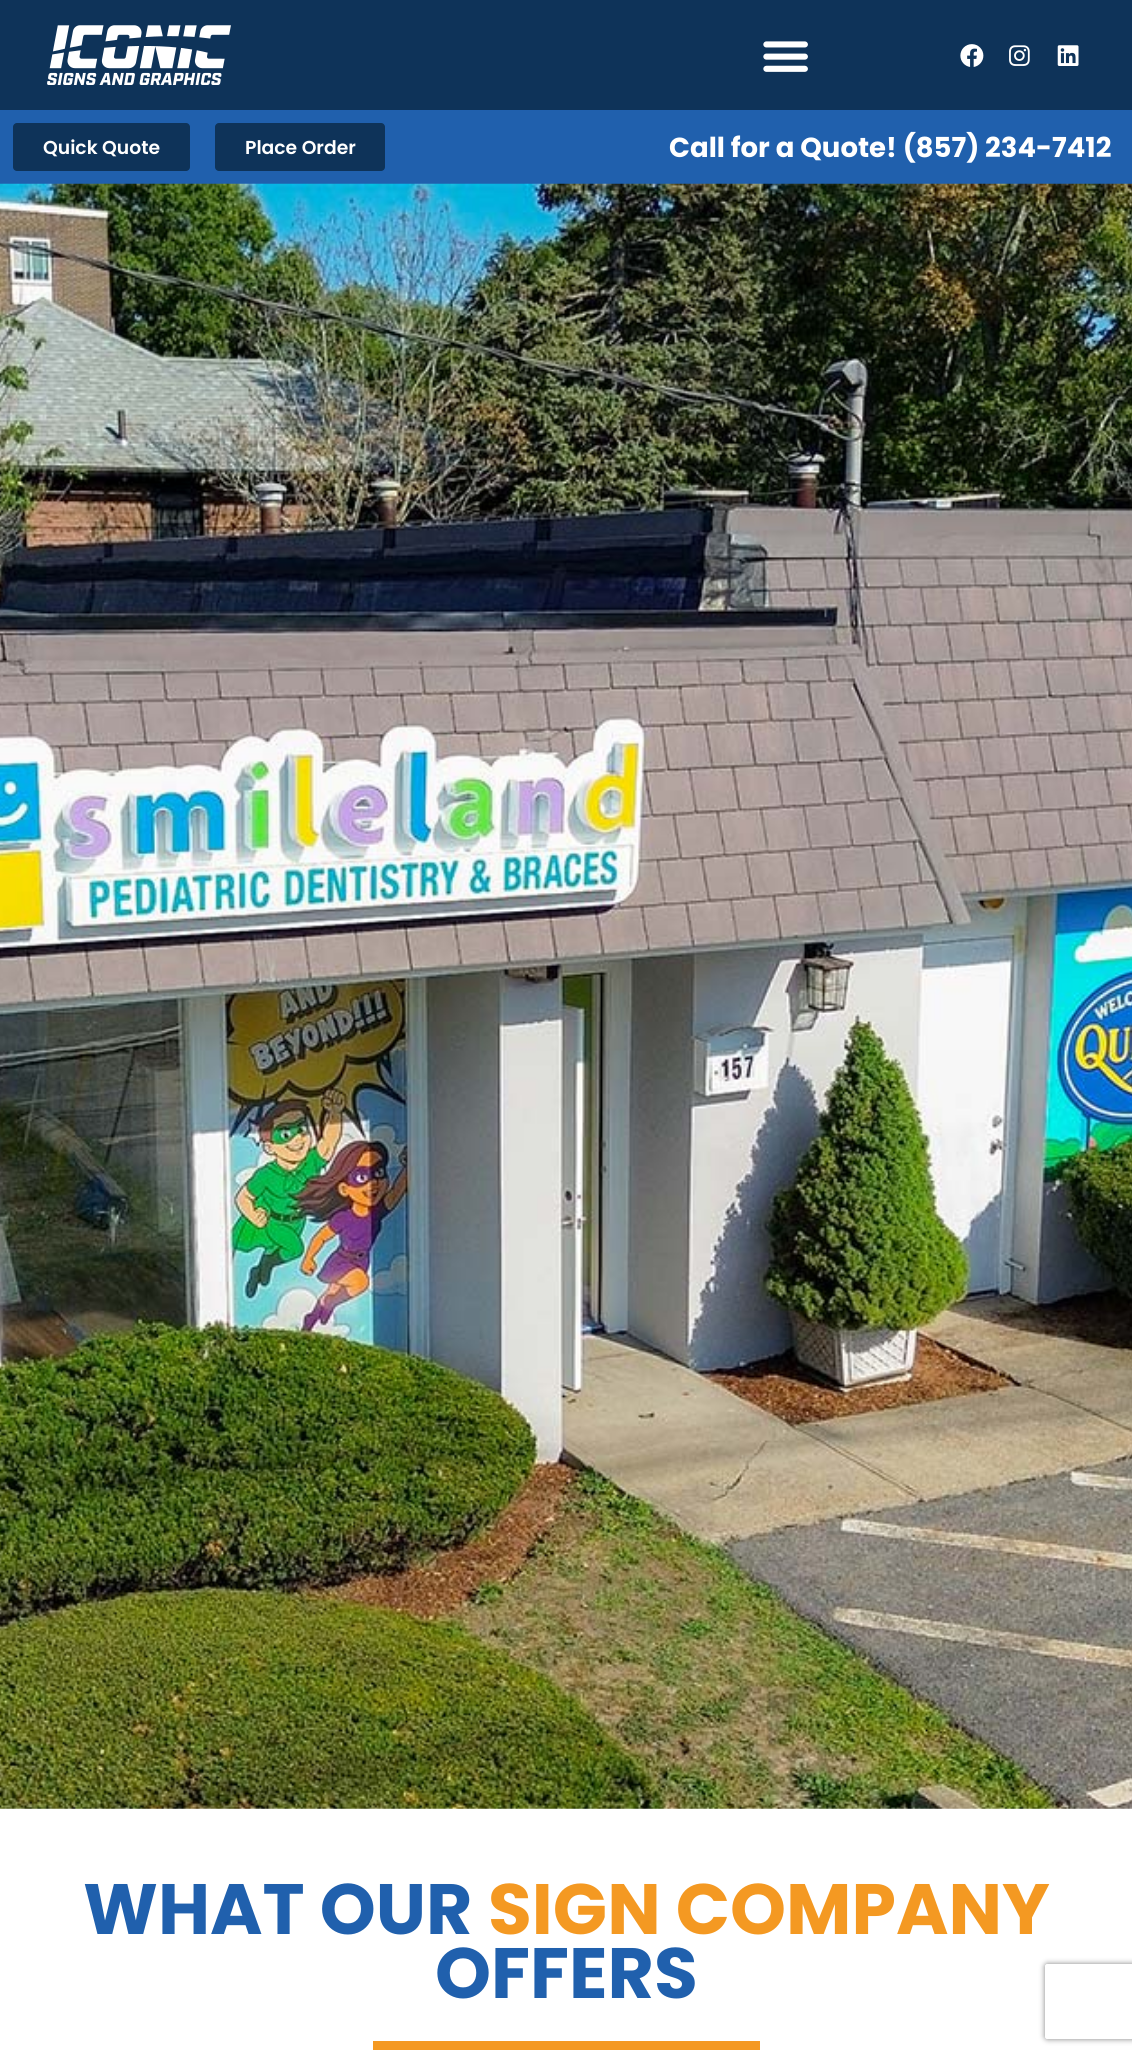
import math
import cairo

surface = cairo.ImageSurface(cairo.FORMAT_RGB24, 1132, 2056)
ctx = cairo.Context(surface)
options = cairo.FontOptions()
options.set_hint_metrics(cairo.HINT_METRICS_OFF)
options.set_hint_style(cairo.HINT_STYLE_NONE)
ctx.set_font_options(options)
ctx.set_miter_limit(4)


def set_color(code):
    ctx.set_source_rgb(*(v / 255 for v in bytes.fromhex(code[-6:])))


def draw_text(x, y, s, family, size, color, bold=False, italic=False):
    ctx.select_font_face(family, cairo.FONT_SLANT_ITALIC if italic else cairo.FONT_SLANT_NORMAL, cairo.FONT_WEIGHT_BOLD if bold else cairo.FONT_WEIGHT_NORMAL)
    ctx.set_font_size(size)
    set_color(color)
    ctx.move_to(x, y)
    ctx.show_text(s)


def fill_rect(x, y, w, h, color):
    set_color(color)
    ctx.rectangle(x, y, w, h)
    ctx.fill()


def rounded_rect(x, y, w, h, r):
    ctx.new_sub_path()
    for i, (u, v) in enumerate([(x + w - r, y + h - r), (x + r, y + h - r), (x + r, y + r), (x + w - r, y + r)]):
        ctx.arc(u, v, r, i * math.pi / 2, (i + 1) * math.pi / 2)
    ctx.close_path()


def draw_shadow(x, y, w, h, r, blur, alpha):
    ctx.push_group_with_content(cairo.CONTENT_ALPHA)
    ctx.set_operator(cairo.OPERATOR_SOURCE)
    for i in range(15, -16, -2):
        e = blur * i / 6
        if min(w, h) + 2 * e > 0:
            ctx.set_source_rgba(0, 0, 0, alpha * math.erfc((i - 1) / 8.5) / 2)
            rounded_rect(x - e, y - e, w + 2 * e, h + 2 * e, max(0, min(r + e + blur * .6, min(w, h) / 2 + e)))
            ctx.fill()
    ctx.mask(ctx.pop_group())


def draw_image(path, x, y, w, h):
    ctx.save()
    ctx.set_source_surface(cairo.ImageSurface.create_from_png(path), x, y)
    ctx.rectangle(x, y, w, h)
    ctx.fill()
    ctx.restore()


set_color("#ffffff")
ctx.paint()
fill_rect(0, 0, 1132, 110, "#0e3359")
draw_image("assets/img1.png", 47, 25, 184, 60)
draw_image("assets/img2.png", 763, 41, 45, 31)
draw_image("assets/img3.png", 960, 44, 24, 23)
draw_image("assets/img4.png", 1009, 45, 21, 21)
draw_image("assets/img5.png", 1057, 45, 22, 21)
fill_rect(0, 110, 1132, 74, "#2060ad")
set_color("#0e3359")
rounded_rect(13, 123, 177, 48, 4)
ctx.fill()
draw_text(43, 154, "Quick Quote", "Poppins SemiBold", 18.75, "#ffffff")
set_color("#0e3359")
rounded_rect(215, 123, 170, 48, 4)
ctx.fill()
draw_text(245, 154, "Place Order", "Poppins SemiBold", 18.75, "#ffffff")
draw_text(669, 157, "Call for a Quote! (857) 234-7412", "Poppins", 27.5, "#ffffff", bold=True)
draw_image("assets/img6.png", 0, 183, 1132, 1626)
draw_text(83, 1934, "WHAT OUR", "Poppins", 71.25, "#2060ad", bold=True)
draw_text(488, 1934, "SIGN COMPANY", "Poppins", 71.25, "#f49922", bold=True)
draw_text(435, 1998, "OFFERS", "Poppins", 71.25, "#2060ad", bold=True)
fill_rect(373, 2041, 387, 9, "#f49922")
ctx.save()
ctx.set_fill_rule(cairo.FILL_RULE_EVEN_ODD)
ctx.new_path()
ctx.move_to(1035, 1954)
ctx.line_to(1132, 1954)
ctx.line_to(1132, 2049)
ctx.line_to(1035, 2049)
ctx.close_path()
ctx.move_to(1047.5, 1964)
ctx.line_to(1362.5, 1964)
ctx.curve_to(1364, 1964, 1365, 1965, 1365, 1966.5)
ctx.line_to(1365, 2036.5)
ctx.curve_to(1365, 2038, 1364, 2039, 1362.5, 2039)
ctx.line_to(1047.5, 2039)
ctx.curve_to(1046, 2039, 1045, 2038, 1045, 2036.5)
ctx.line_to(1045, 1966.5)
ctx.curve_to(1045, 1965, 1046, 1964, 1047.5, 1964)
ctx.close_path()
ctx.clip()
set_color("#808080")
draw_shadow(1045, 1964, 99, 75, 2.5, 3, 1)
ctx.restore()
surface.write_to_png("output.png")
